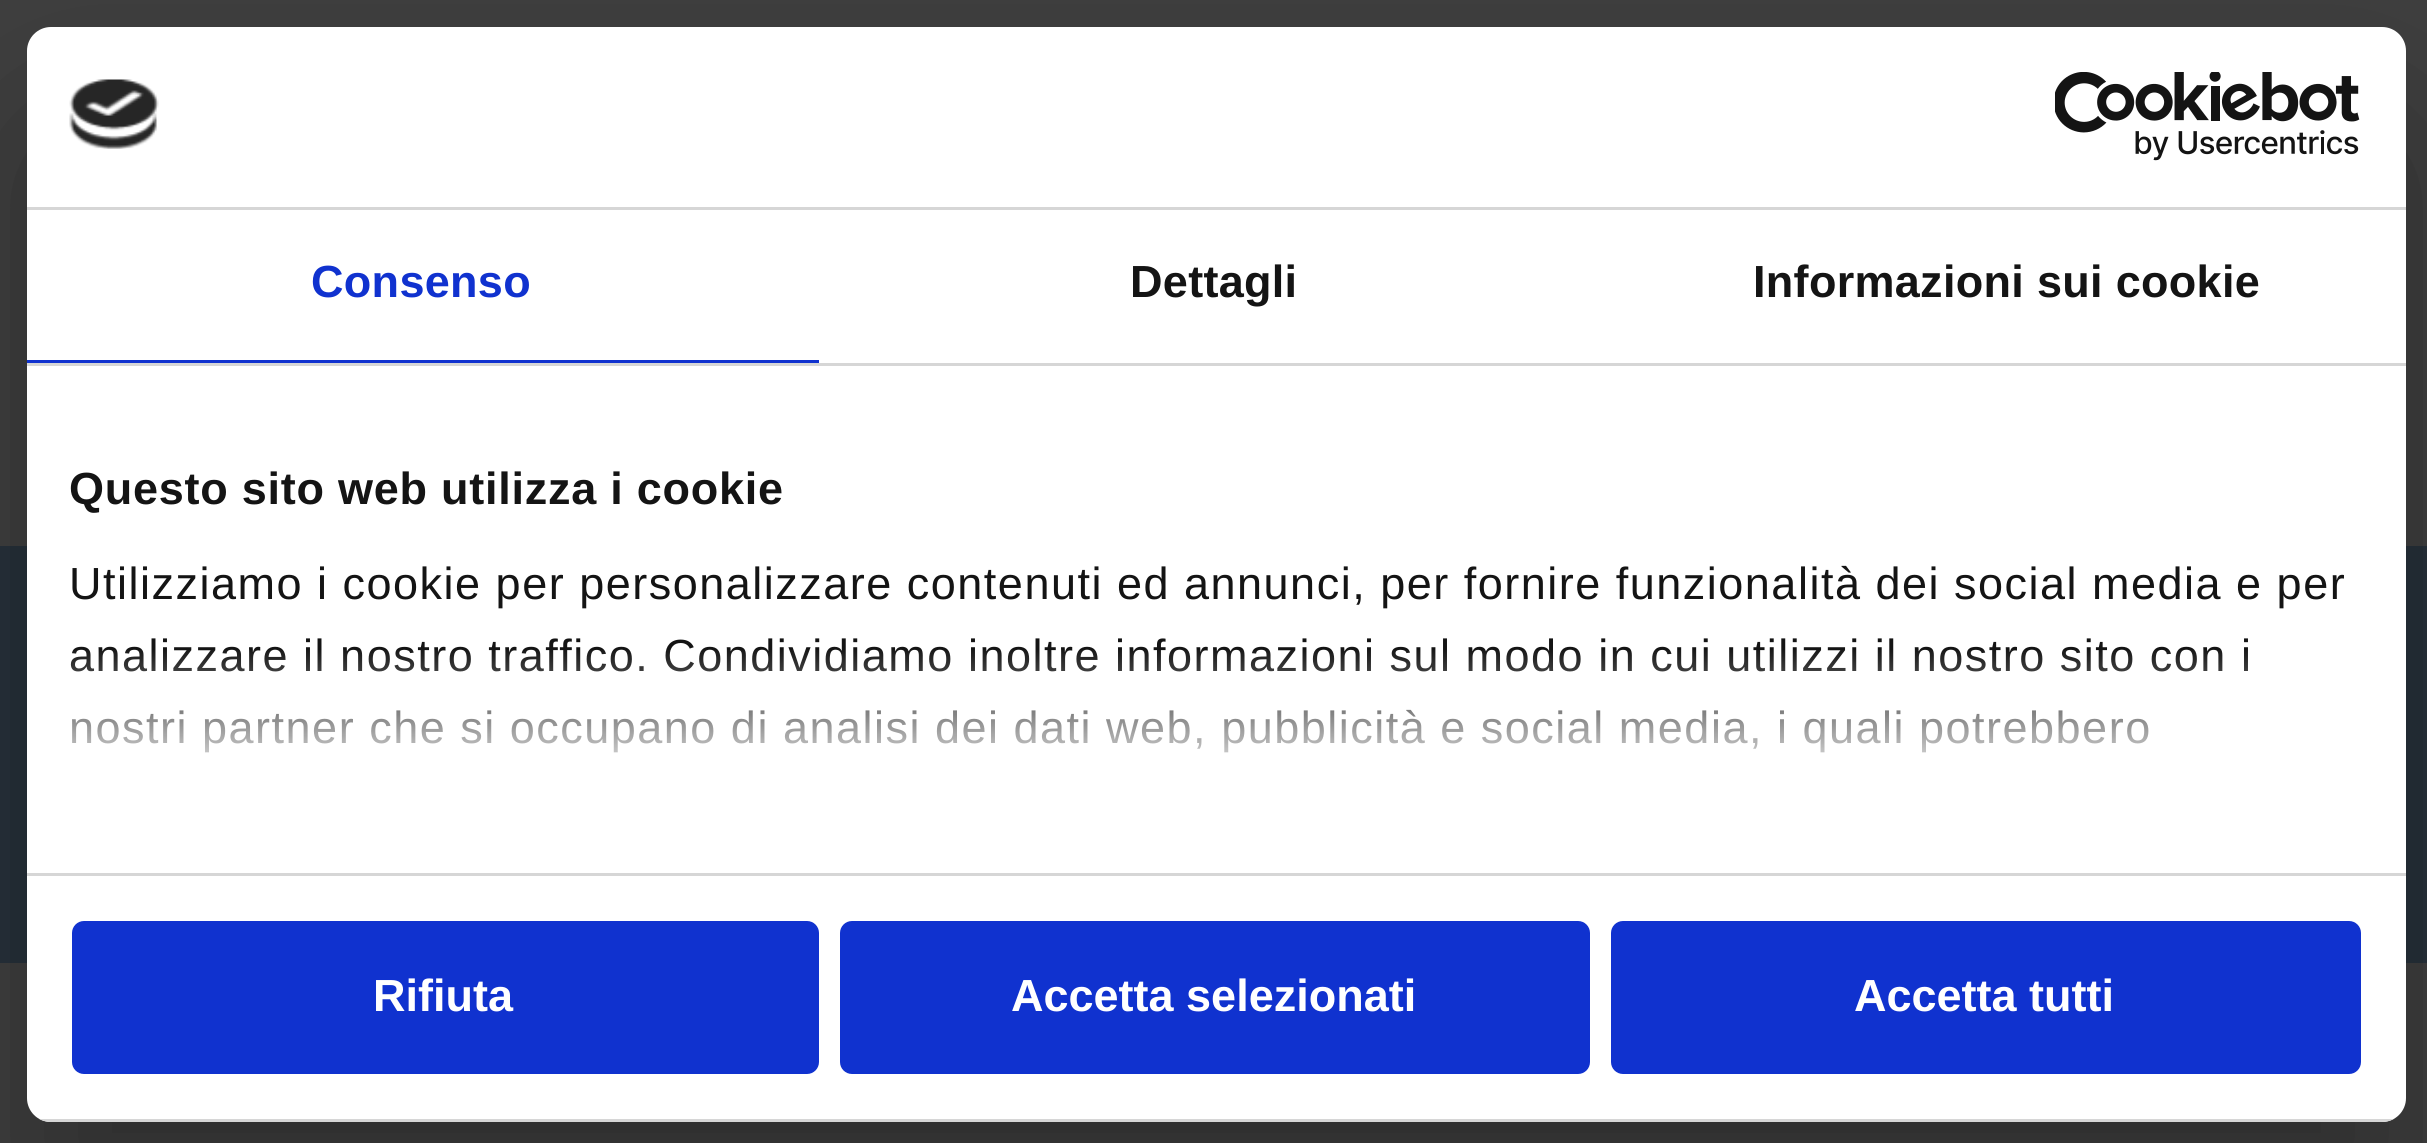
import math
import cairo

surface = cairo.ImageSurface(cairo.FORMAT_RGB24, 2427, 1143)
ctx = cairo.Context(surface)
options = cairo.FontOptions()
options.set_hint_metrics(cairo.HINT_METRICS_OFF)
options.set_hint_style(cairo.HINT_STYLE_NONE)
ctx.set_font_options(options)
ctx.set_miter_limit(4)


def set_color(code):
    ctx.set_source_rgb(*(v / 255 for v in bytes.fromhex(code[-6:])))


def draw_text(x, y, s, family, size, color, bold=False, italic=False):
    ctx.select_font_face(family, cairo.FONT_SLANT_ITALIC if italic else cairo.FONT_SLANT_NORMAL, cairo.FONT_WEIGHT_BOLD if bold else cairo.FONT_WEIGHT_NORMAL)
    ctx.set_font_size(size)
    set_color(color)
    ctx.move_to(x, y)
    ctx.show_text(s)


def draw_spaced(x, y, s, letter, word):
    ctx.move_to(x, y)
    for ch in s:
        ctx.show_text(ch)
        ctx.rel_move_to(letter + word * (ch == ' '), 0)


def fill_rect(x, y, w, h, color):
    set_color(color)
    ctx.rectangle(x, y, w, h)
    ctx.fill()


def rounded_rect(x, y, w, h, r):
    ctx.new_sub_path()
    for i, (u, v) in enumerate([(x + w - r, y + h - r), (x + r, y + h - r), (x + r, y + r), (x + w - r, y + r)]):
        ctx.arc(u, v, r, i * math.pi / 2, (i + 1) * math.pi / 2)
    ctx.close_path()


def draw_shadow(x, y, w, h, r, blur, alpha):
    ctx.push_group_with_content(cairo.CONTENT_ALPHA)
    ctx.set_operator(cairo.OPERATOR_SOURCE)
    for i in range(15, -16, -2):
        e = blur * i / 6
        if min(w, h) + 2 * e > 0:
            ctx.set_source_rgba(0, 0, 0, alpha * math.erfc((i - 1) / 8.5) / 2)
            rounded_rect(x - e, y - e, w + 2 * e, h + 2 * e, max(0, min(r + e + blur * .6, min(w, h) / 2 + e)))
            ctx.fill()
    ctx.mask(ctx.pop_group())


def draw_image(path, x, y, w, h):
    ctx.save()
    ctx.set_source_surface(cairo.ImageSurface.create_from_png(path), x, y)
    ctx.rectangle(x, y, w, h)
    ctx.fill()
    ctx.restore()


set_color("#404040")
ctx.paint()
fill_rect(0, 546, 2427, 417, "#27313b")
ctx.save()
ctx.set_fill_rule(cairo.FILL_RULE_EVEN_ODD)
ctx.new_path()
ctx.move_to(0, 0)
ctx.line_to(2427, 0)
ctx.line_to(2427, 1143)
ctx.line_to(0, 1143)
ctx.close_path()
ctx.move_to(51, 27)
ctx.line_to(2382, 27)
ctx.curve_to(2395.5, 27, 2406, 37.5, 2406, 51)
ctx.line_to(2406, 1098)
ctx.curve_to(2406, 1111.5, 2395.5, 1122, 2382, 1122)
ctx.line_to(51, 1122)
ctx.curve_to(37.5, 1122, 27, 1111.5, 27, 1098)
ctx.line_to(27, 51)
ctx.curve_to(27, 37.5, 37.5, 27, 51, 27)
ctx.close_path()
ctx.clip()
set_color("#000000")
draw_shadow(27, 123, 2379, 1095, 24, 102, 0.3)
ctx.restore()
set_color("#ffffff")
rounded_rect(27, 27, 2379, 1095, 24)
ctx.fill()
fill_rect(27, 207, 2379, 3, "#d6d6d6")
draw_image("assets/img1.png", 69, 79, 90, 70)
draw_image("assets/img2.png", 2055, 72, 305, 89)
fill_rect(27, 363, 2379, 3, "#d6d6d6")
fill_rect(27, 360, 792, 3, "#1032cf")
ctx.select_font_face("Liberation Sans", cairo.FONT_SLANT_NORMAL, cairo.FONT_WEIGHT_BOLD)
ctx.set_font_size(45)
draw_spaced(311, 297, "Consenso", 0.3, 0)
set_color("#141414")
draw_spaced(1130, 297, "Dettagli", 0.3, 0)
draw_spaced(1753, 297, "Informazioni sui cookie", 0.3, 0)
fill_rect(27, 873, 2379, 3, "#d6d6d6")
set_color("#141414")
draw_spaced(69, 504, "Questo sito web utilizza i cookie", 0.75, 0)
ctx.select_font_face("Liberation Sans")
draw_spaced(69, 599, "Utilizziamo i cookie per personalizzare contenuti ed annunci, per fornire funzionalità dei social media e per", 1.5, 0)
draw_spaced(69, 671, "analizzare il nostro traffico. Condividiamo inoltre informazioni sul modo in cui utilizzi il nostro sito con i", 1.5, 0)
draw_spaced(69, 743, "nostri partner che si occupano di analisi dei dati web, pubblicità e social media, i quali potrebbero", 1.5, 0)
gradient = cairo.LinearGradient(1196, 872, 1196, 647)
gradient.add_color_stop_rgba(0, 1, 1, 1, 1)
gradient.add_color_stop_rgba(0.5, 1, 1, 1, 0.8)
gradient.add_color_stop_rgba(1, 1, 1, 1, 0)
ctx.set_source(gradient)
ctx.rectangle(71, 650, 2177, 103)
ctx.fill()
ctx.save()
rounded_rect(27, 27, 2379, 1095, 24)
ctx.clip()
fill_rect(39, 1119, 2355, 3, "#d6d6d6")
ctx.restore()
set_color("#1032cf")
rounded_rect(75, 924, 741, 147, 9)
ctx.fill_preserve()
ctx.set_line_width(6)
ctx.stroke()
draw_text(373, 1011, "Rifiuta", "Liberation Sans", 45, "#ffffff", bold=True)
set_color("#1032cf")
rounded_rect(843, 924, 744, 147, 9)
ctx.fill_preserve()
ctx.stroke()
draw_text(1011, 1011, "Accetta selezionati", "Liberation Sans", 45, "#ffffff", bold=True)
set_color("#1032cf")
rounded_rect(1614, 924, 744, 147, 9)
ctx.fill_preserve()
ctx.stroke()
draw_text(1854, 1011, "Accetta tutti", "Liberation Sans", 45, "#ffffff", bold=True)
surface.write_to_png("output.png")
